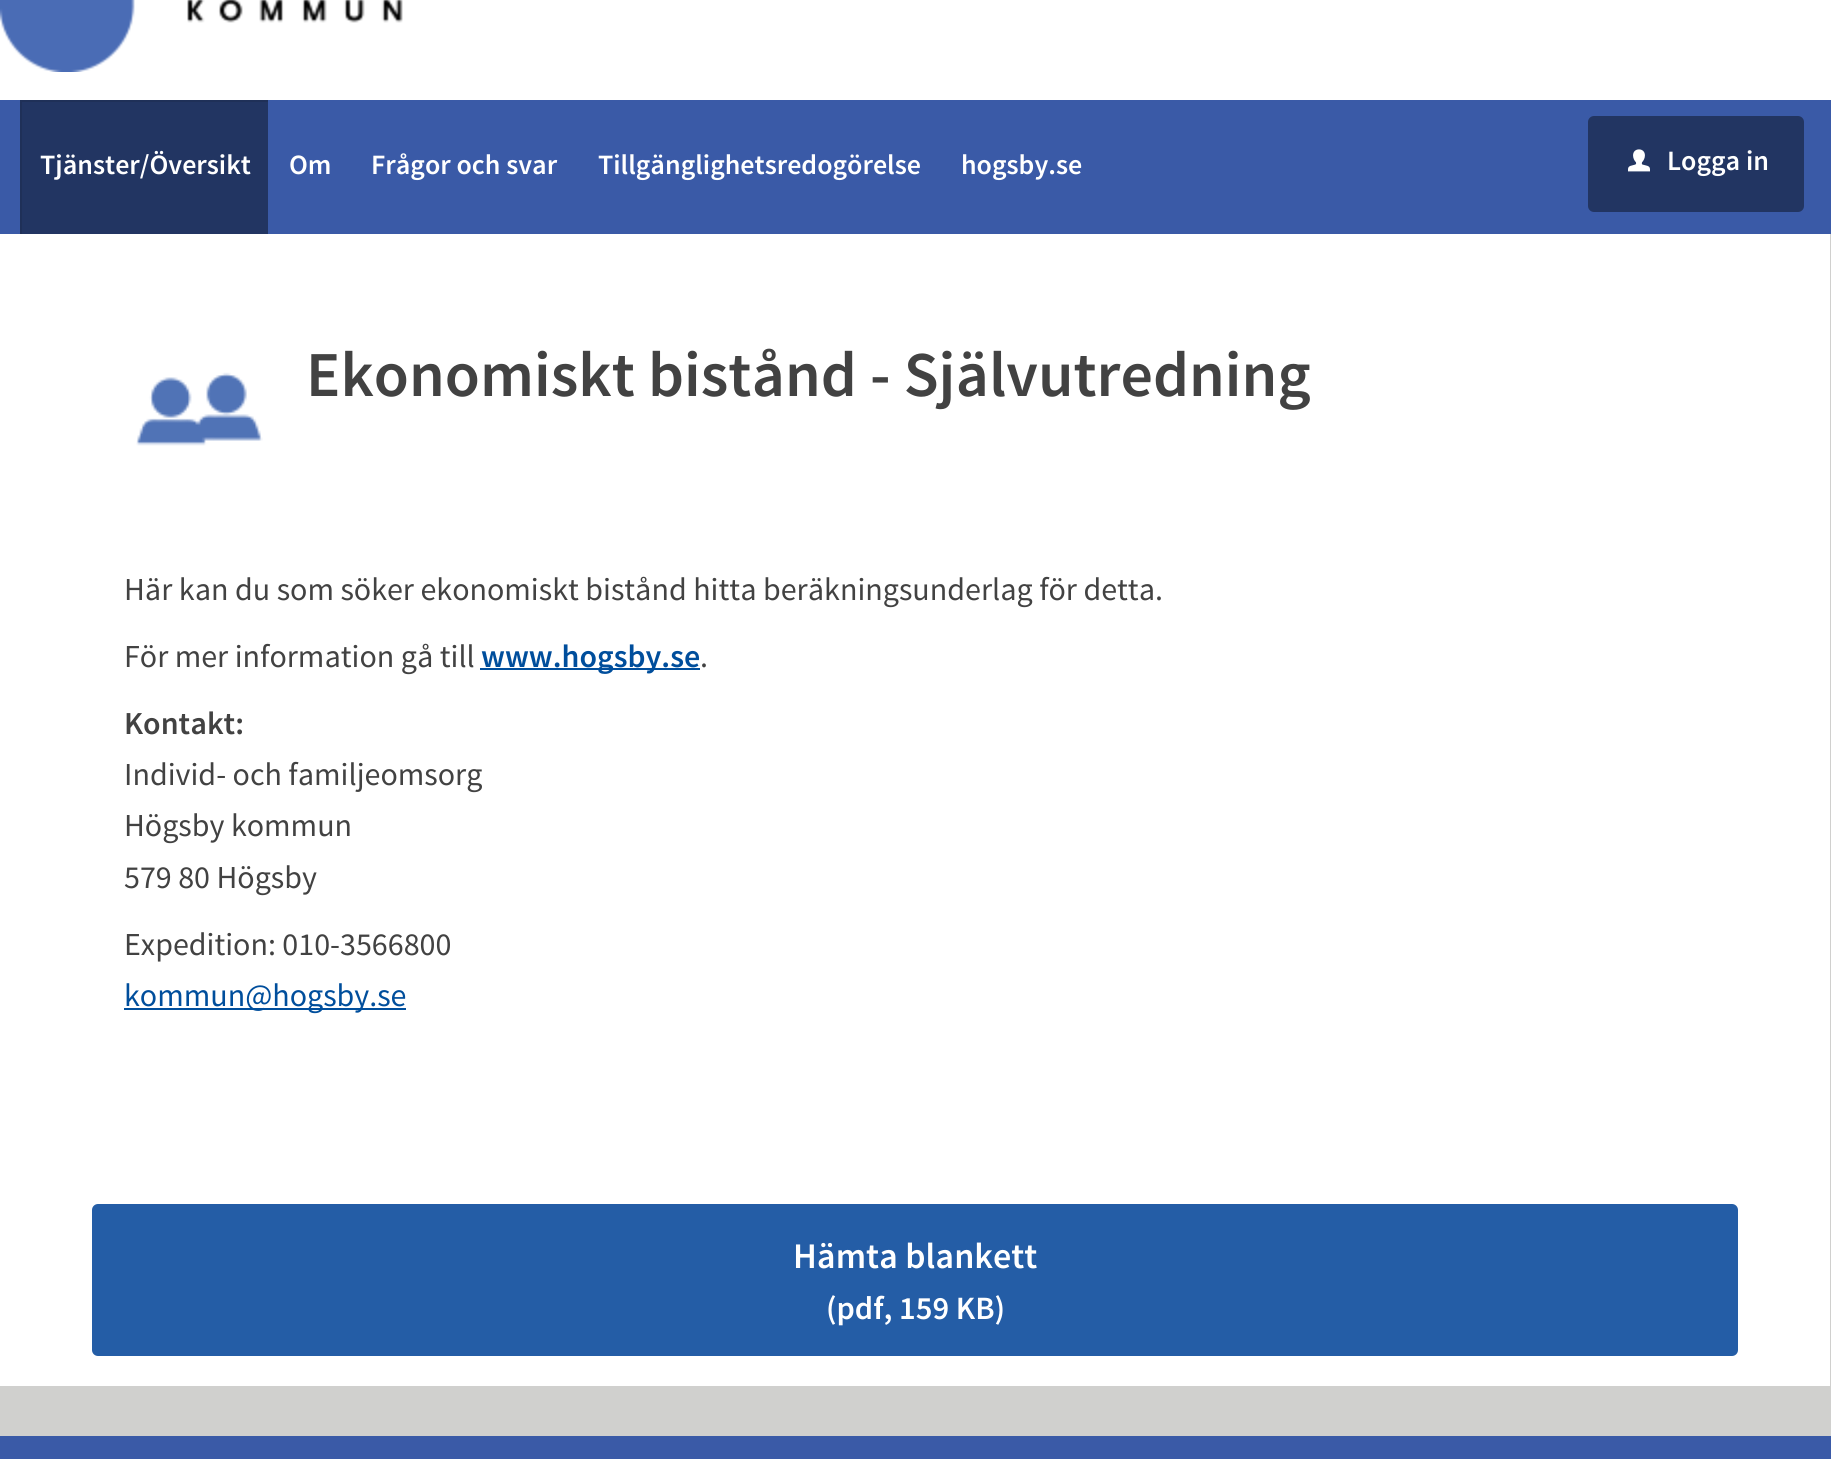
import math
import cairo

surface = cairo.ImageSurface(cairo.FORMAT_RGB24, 1831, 1459)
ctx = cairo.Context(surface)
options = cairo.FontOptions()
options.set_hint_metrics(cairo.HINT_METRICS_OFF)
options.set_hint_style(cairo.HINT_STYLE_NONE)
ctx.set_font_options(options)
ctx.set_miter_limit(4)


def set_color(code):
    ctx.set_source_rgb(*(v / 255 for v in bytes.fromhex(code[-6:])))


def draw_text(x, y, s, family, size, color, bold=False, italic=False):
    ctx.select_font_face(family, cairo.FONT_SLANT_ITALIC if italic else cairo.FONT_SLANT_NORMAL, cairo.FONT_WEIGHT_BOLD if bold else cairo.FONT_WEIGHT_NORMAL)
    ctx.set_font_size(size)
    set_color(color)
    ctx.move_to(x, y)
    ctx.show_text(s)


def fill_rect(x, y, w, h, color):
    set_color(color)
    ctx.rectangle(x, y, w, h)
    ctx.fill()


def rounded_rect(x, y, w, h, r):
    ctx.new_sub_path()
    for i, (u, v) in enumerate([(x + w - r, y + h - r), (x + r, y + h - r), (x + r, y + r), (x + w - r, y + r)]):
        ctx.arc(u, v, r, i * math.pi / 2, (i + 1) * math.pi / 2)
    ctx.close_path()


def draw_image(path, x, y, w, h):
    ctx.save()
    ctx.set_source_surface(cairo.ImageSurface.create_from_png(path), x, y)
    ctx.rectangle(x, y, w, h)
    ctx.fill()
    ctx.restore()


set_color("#d0d0ce")
ctx.paint()
fill_rect(0, 0, 1831, 100, "#ffffff")
draw_image("assets/img1.png", 0, 0, 403, 72)
fill_rect(0, 100, 1831, 134, "#3a5aa7")
fill_rect(22, 102, 246, 132, "#223562")
ctx.save()
ctx.rectangle(20, 100, 248, 134)
ctx.clip()
set_color("#1f3058")
ctx.set_fill_rule(cairo.FILL_RULE_EVEN_ODD)
ctx.new_path()
ctx.move_to(-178, -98)
ctx.line_to(466, -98)
ctx.line_to(466, 432)
ctx.line_to(-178, 432)
ctx.close_path()
ctx.move_to(22, 102)
ctx.line_to(270, 102)
ctx.line_to(270, 236)
ctx.line_to(22, 236)
ctx.close_path()
ctx.fill()
ctx.restore()
draw_text(40, 174, "Tjänster/Översikt", "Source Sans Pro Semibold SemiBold", 28, "#ffffff")
draw_text(289, 174, "Om", "Source Sans Pro Semibold SemiBold", 28, "#ffffff")
draw_text(371, 174, "Frågor och svar", "Source Sans Pro Semibold SemiBold", 28, "#ffffff")
draw_text(598, 174, "Tillgänglighetsredogörelse", "Source Sans Pro Semibold SemiBold", 28, "#ffffff")
draw_text(961, 174, "hogsby.se", "Source Sans Pro Semibold SemiBold", 28, "#ffffff")
set_color("#223562")
rounded_rect(1588, 116, 216, 96, 6)
ctx.fill()
draw_image("assets/img2.png", 1628, 149, 22, 23)
draw_text(1667, 170, "Logga in", "Source Sans Pro Semibold SemiBold", 28, "#ffffff")
fill_rect(0, 234, 1830, 1152, "#ffffff")
draw_image("assets/img3.png", 136, 372, 127, 74)
draw_text(306, 396, "Ekonomiskt bistånd - Självutredning", "Source Sans Pro Semibold SemiBold", 64, "#424242")
draw_text(124, 600, "Här kan du som söker ekonomiskt bistånd hitta beräkningsunderlag för detta.", "Source Sans Pro", 32, "#424242")
draw_text(124, 667, "För mer information gå till", "Source Sans Pro", 32, "#424242")
fill_rect(480, 668, 220, 2, "#004e9c")
draw_text(481, 667, "www.hogsby.se", "Source Sans Pro Semibold SemiBold", 32, "#004e9c")
draw_text(700, 667, ".", "Source Sans Pro", 32, "#424242")
draw_text(124, 734, "Kontakt:", "Source Sans Pro Semibold SemiBold", 32, "#424242")
draw_text(124, 785, "Individ- och familjeomsorg", "Source Sans Pro", 32, "#424242")
draw_text(124, 836, "Högsby kommun", "Source Sans Pro", 32, "#424242")
draw_text(124, 888, "579 80 Högsby", "Source Sans Pro", 32, "#424242")
draw_text(124, 955, "Expedition: 010-3566800", "Source Sans Pro", 32, "#424242")
fill_rect(124, 1008, 282, 2, "#004e9c")
draw_text(124, 1006, "kommun@hogsby.se", "Source Sans Pro", 32, "#004e9c")
set_color("#245da6")
rounded_rect(92, 1204, 1646, 152, 6)
ctx.fill()
draw_text(793, 1268, "Hämta blankett", "Source Sans Pro Semibold SemiBold", 36, "#ffffff")
draw_text(826, 1319, "(pdf, 159 KB)", "Source Sans Pro Semibold SemiBold", 32.5, "#ffffff")
fill_rect(0, 1436, 1831, 23, "#3a5aa7")
surface.write_to_png("output.png")
